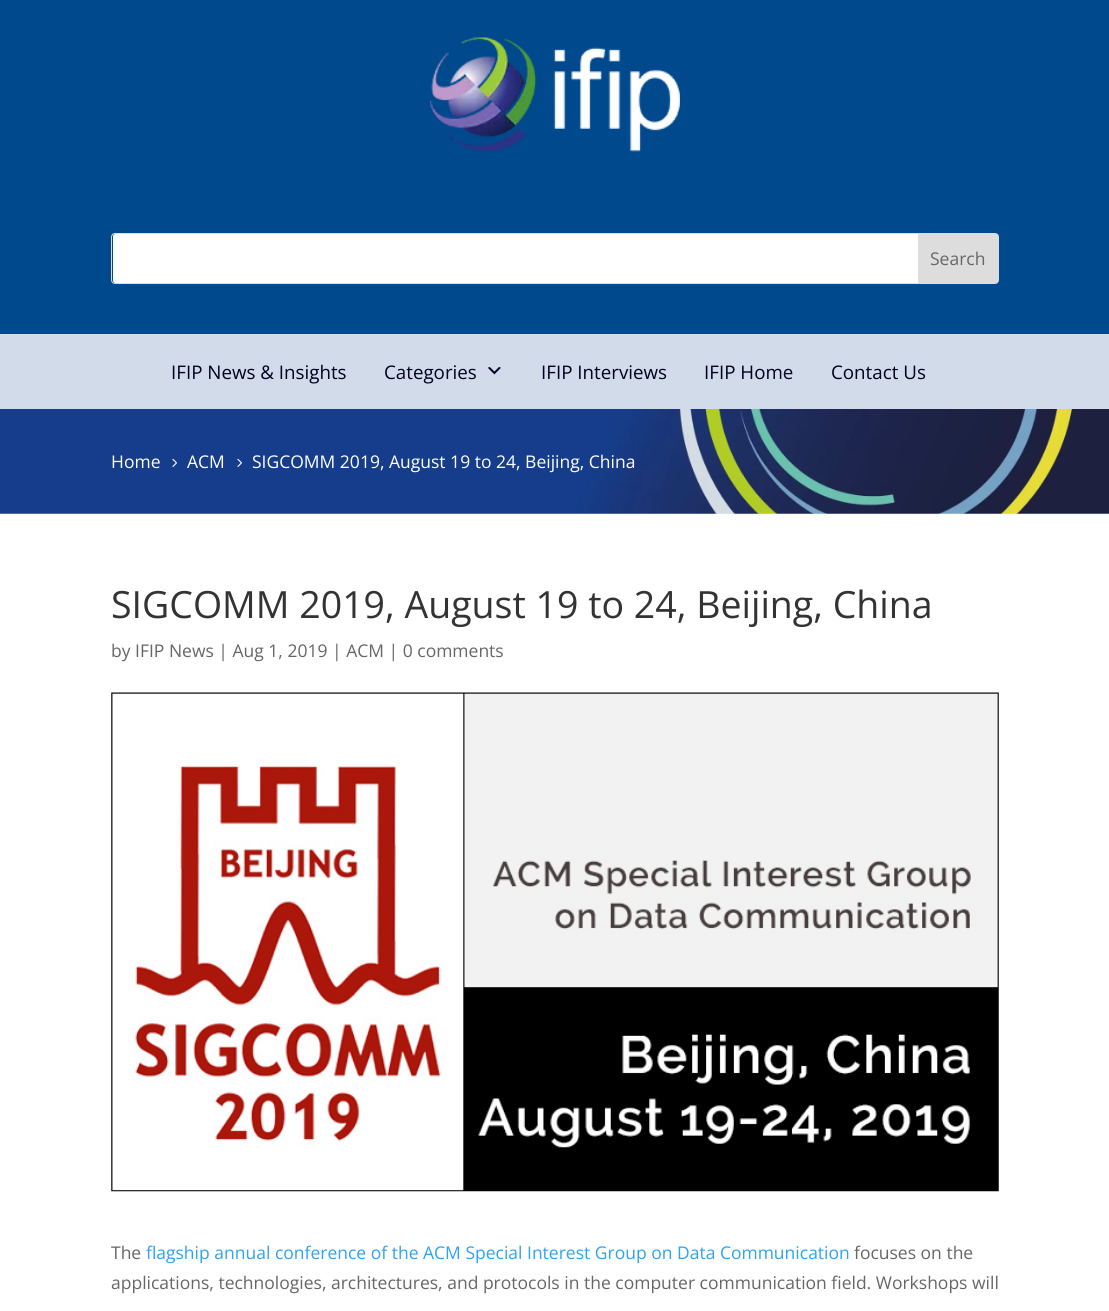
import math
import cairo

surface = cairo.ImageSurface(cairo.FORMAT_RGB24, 1109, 1311)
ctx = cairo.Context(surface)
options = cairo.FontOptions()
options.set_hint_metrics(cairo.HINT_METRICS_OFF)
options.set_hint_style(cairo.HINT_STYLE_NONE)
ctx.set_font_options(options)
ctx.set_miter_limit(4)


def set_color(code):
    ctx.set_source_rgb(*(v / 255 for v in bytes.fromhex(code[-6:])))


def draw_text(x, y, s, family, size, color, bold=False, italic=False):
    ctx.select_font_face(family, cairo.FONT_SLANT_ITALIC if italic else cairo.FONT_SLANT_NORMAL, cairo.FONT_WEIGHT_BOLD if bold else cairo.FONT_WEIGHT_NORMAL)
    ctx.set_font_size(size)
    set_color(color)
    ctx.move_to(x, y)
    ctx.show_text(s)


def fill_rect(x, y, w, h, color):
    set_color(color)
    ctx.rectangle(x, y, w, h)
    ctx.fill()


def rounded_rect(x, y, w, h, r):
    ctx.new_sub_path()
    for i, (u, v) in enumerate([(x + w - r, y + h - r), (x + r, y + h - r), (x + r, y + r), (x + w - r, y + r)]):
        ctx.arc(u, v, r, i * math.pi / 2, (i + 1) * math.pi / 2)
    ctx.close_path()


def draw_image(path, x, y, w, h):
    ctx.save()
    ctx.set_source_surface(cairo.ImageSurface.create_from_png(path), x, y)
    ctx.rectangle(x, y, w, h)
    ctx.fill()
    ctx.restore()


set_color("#ffffff")
ctx.paint()
fill_rect(0, 0, 1109, 334, "#00498d")
draw_image("assets/img1.png", 430, 37, 250, 115)
rounded_rect(111.5, 233.5, 887, 50, 3.5)
set_color("#dddddd")
ctx.set_line_width(1)
ctx.stroke()
set_color("#ffffff")
rounded_rect(113, 234, 885, 49, 2.5)
ctx.fill()
set_color("#dddddd")
ctx.new_path()
ctx.move_to(918, 234)
ctx.line_to(995.5, 234)
ctx.curve_to(997, 234, 998, 235, 998, 236.5)
ctx.line_to(998, 280.5)
ctx.curve_to(998, 282, 997, 283, 995.5, 283)
ctx.line_to(918, 283)
ctx.close_path()
ctx.fill()
draw_text(930, 265, "Search", "Open Sans", 17.5, "#666666")
fill_rect(0, 334, 1109, 75, "#d1dbe9")
draw_text(171, 379, "IFIP News & Insights", "Open Sans", 18.75, "#000022")
draw_text(384, 379, "Categories", "Open Sans", 18.75, "#000022")
draw_image("assets/img2.png", 487, 367, 14, 8)
draw_text(541, 379, "IFIP Interviews", "Open Sans", 18.75, "#000022")
draw_text(704, 379, "IFIP Home", "Open Sans", 18.75, "#000022")
draw_text(831, 379, "Contact Us", "Open Sans", 18.75, "#000022")
draw_image("assets/img3.png", 0, 409, 1109, 105)
draw_text(111, 468, "Home", "Open Sans", 17.5, "#ffffff")
draw_image("assets/img4.png", 172, 458, 5, 9)
draw_text(187, 468, "ACM", "Open Sans", 17.5, "#ffffff")
draw_image("assets/img4.png", 237, 458, 5, 9)
draw_text(252, 468, "SIGCOMM 2019, August 19 to 24, Beijing, China", "Open Sans", 17.5, "#ffffff")
draw_text(111, 618, "SIGCOMM 2019, August 19 to 24, Beijing, China", "Open Sans", 37.5, "#333333")
draw_text(111, 657, "by IFIP News | Aug 1, 2019 | ACM | 0 comments", "Open Sans", 17.5, "#666666")
draw_image("assets/img5.png", 111, 692, 888, 500)
draw_text(111, 1259, "The", "Open Sans", 17.5, "#666666")
draw_text(146, 1259, "flagship annual conference of the ACM Special Interest Group on Data Communication", "Open Sans", 17.5, "#2ea3f2")
draw_text(854, 1259, "focuses on the", "Open Sans", 17.5, "#666666")
draw_text(111, 1289, "applications, technologies, architectures, and protocols in the computer communication field. Workshops will", "Open Sans", 17.5, "#666666")
surface.write_to_png("output.png")
